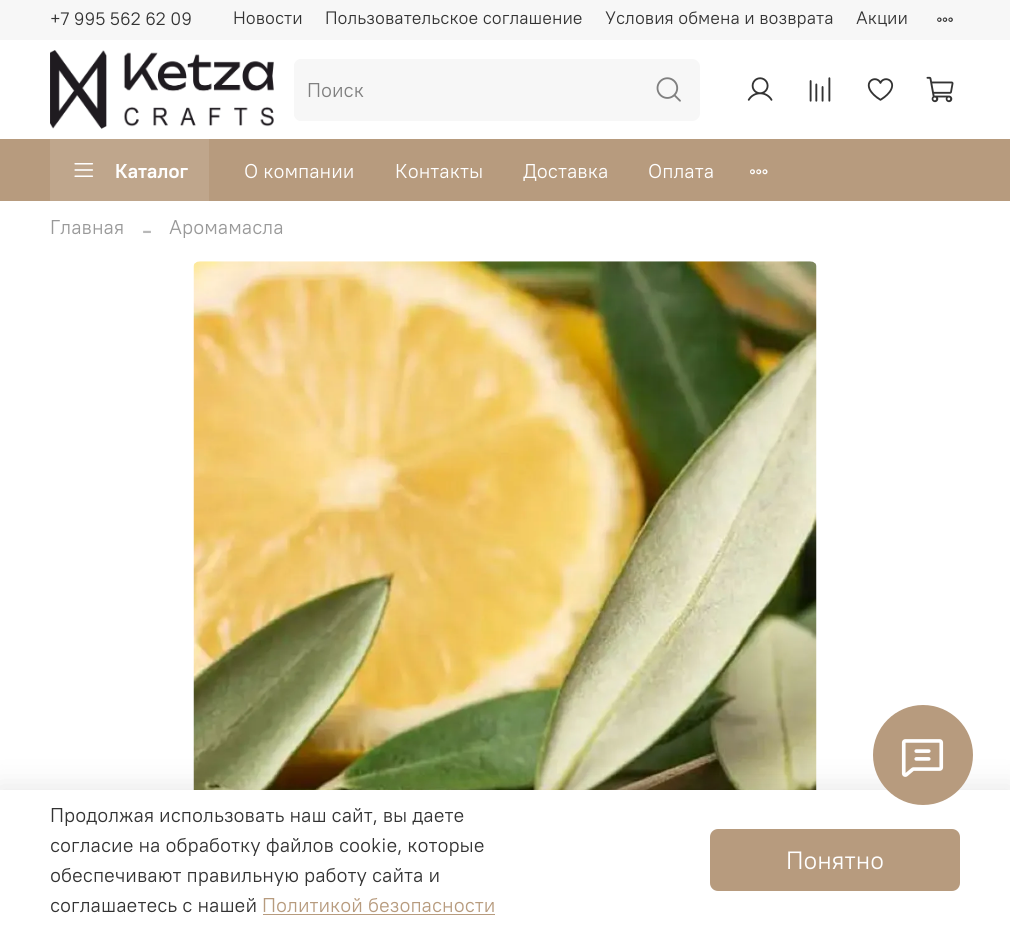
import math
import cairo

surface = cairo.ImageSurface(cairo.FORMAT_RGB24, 1010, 929)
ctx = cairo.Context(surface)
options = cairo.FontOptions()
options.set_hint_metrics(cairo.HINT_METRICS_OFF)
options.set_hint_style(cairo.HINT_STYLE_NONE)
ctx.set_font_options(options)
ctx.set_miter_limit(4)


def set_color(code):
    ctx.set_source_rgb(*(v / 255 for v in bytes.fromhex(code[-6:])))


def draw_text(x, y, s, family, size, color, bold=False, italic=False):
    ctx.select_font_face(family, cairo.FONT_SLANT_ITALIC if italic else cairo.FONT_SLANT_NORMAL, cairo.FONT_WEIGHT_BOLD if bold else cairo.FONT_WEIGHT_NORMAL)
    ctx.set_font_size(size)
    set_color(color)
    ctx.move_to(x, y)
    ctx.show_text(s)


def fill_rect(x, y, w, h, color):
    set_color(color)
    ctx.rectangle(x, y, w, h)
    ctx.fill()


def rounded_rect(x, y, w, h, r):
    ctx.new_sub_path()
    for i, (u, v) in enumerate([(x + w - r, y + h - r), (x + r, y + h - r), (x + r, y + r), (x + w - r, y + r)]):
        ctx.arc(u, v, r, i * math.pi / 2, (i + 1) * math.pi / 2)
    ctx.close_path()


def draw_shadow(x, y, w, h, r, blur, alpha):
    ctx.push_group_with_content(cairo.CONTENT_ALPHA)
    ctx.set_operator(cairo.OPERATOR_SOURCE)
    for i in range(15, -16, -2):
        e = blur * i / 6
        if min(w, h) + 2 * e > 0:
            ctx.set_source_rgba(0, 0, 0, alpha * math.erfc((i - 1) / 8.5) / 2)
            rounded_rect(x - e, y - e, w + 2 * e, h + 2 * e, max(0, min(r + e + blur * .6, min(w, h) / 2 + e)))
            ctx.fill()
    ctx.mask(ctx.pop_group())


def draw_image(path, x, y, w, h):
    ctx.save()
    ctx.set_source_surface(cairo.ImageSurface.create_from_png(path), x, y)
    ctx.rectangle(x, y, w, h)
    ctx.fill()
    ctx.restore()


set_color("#ffffff")
ctx.paint()
fill_rect(0, 0, 1010, 40, "#f7f7f7")
draw_text(50, 25, "+7 995 562 62 09", "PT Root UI", 18, "#333333")
draw_text(233, 24, "Новости", "PT Root UI", 18, "#333333")
draw_text(325, 24, "Пользовательское соглашение", "PT Root UI", 18, "#333333")
draw_text(605, 24, "Условия обмена и возврата", "PT Root UI", 18, "#333333")
draw_text(856, 24, "Акции", "PT Root UI", 18, "#333333")
draw_image("assets/img1.png", 937, 17, 16, 5)
draw_image("assets/img2.png", 50, 50, 224, 79)
set_color("#f7f7f7")
ctx.new_path()
ctx.move_to(302, 59)
ctx.line_to(638, 59)
ctx.line_to(638, 121)
ctx.line_to(302, 121)
ctx.curve_to(297.5, 121, 294, 117.5, 294, 113)
ctx.line_to(294, 67)
ctx.curve_to(294, 62.5, 297.5, 59, 302, 59)
ctx.close_path()
ctx.fill()
ctx.set_fill_rule(cairo.FILL_RULE_EVEN_ODD)
ctx.new_path()
ctx.move_to(301, 59)
ctx.line_to(638, 59)
ctx.line_to(638, 121)
ctx.line_to(301, 121)
ctx.curve_to(297, 121, 294, 118, 294, 114)
ctx.line_to(294, 66)
ctx.curve_to(294, 62, 297, 59, 301, 59)
ctx.close_path()
ctx.move_to(301, 60)
ctx.line_to(638, 60)
ctx.line_to(638, 120)
ctx.line_to(301, 120)
ctx.curve_to(298, 120, 295, 117, 295, 114)
ctx.line_to(295, 66)
ctx.curve_to(295, 63, 298, 60, 301, 60)
ctx.close_path()
ctx.fill()
draw_text(307, 97, "Поиск", "PT Root UI", 20, "#808080")
set_color("#f7f7f7")
ctx.new_path()
ctx.move_to(638, 59)
ctx.line_to(692, 59)
ctx.curve_to(696.5, 59, 700, 62.5, 700, 67)
ctx.line_to(700, 113)
ctx.curve_to(700, 117.5, 696.5, 121, 692, 121)
ctx.line_to(638, 121)
ctx.close_path()
ctx.fill()
draw_image("assets/img3.png", 656, 77, 25, 25)
draw_image("assets/img4.png", 747, 77, 26, 24)
draw_image("assets/img5.png", 809, 77, 22, 25)
draw_image("assets/img6.png", 867, 78, 27, 23)
draw_image("assets/img7.png", 926, 76, 28, 27)
fill_rect(0, 139, 1010, 62, "#b79b7e")
fill_rect(50, 139, 159, 62, "#bfa68c")
draw_image("assets/img8.png", 74, 163, 20, 14)
draw_text(115, 178, "Каталог", "PT Root UI", 20, "#ffffff", bold=True)
draw_text(244, 178, "О компании", "PT Root UI", 20, "#ffffff")
draw_text(395, 178, "Контакты", "PT Root UI", 20, "#ffffff")
draw_text(523, 178, "Доставка", "PT Root UI", 20, "#ffffff")
draw_text(648, 178, "Оплата", "PT Root UI", 20, "#ffffff")
draw_image("assets/img9.png", 750, 169, 18, 6)
draw_text(50, 234, "Главная", "PT Root UI", 20, "#999999")
draw_text(142, 239, "-", "Liberation Serif", 30, "#b8b8b8")
draw_text(169, 234, "Аромамасла", "PT Root UI", 20, "#999999")
draw_image("assets/img10.png", 193, 261, 624, 529)
set_color("#000000")
draw_shadow(-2, 786, 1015, 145, 0, 14.5, 0.09)
fill_rect(0, 790, 1010, 139, "#ffffff")
set_color("#b79b7e")
ctx.arc(923, 755, 50, 0, 2 * math.pi)
ctx.fill()
draw_image("assets/img11.png", 901, 739, 43, 38)
draw_text(50, 822, "Продолжая использовать наш сайт, вы даете", "PT Root UI", 20, "#333333")
draw_text(50, 852, "согласие на обработку файлов cookie, которые", "PT Root UI", 20, "#333333")
draw_text(50, 882, "обеспечивают правильную работу сайта и", "PT Root UI", 20, "#333333")
draw_text(50, 912, "соглашаетесь с нашей", "PT Root UI", 20, "#333333")
draw_text(262, 912, "Политикой безопасности", "PT Root UI", 20, "#b79b7e")
fill_rect(263, 914, 232, 1, "#b79b7e")
rounded_rect(710, 829, 250, 62, 8)
ctx.fill()
draw_text(786, 869, "Понятно", "PT Root UI", 25, "#ffffff")
surface.write_to_png("output.png")
